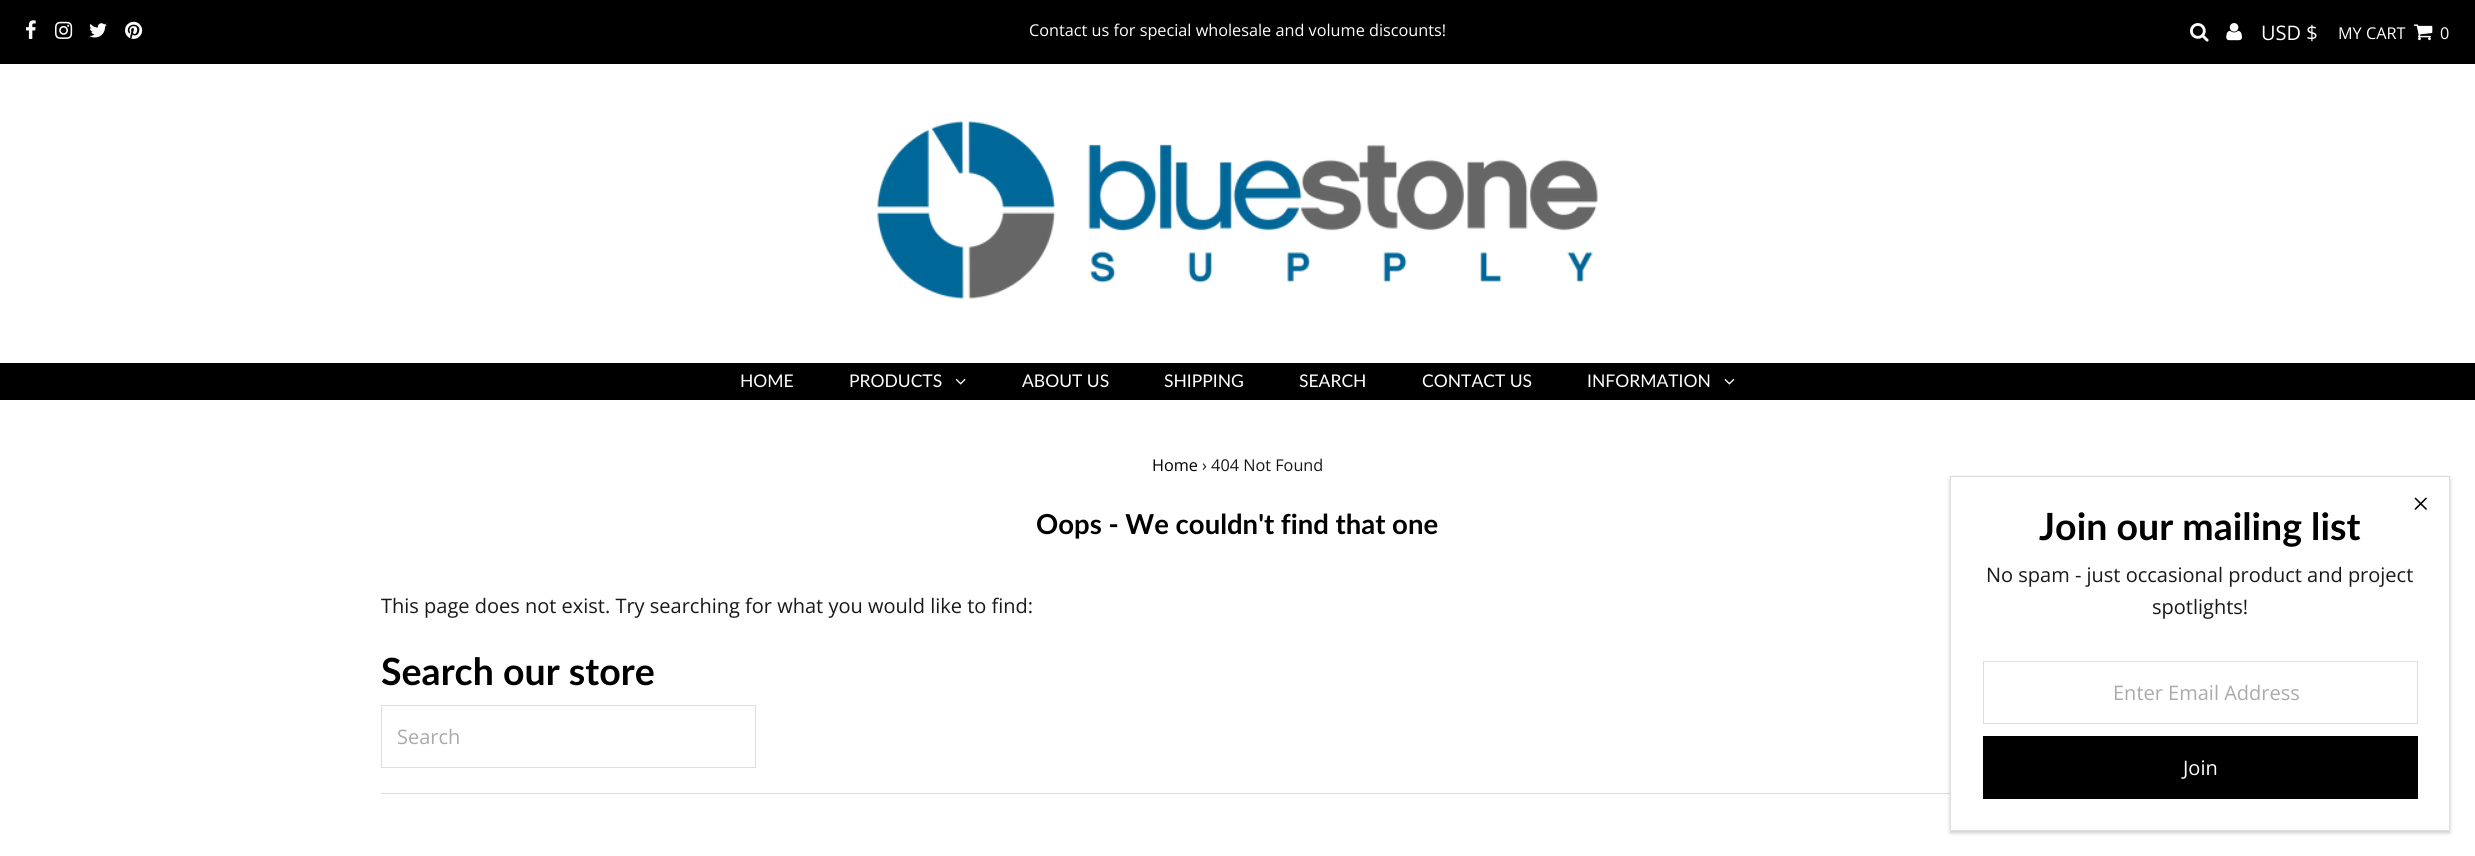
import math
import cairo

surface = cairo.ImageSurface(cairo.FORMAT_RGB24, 2475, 856)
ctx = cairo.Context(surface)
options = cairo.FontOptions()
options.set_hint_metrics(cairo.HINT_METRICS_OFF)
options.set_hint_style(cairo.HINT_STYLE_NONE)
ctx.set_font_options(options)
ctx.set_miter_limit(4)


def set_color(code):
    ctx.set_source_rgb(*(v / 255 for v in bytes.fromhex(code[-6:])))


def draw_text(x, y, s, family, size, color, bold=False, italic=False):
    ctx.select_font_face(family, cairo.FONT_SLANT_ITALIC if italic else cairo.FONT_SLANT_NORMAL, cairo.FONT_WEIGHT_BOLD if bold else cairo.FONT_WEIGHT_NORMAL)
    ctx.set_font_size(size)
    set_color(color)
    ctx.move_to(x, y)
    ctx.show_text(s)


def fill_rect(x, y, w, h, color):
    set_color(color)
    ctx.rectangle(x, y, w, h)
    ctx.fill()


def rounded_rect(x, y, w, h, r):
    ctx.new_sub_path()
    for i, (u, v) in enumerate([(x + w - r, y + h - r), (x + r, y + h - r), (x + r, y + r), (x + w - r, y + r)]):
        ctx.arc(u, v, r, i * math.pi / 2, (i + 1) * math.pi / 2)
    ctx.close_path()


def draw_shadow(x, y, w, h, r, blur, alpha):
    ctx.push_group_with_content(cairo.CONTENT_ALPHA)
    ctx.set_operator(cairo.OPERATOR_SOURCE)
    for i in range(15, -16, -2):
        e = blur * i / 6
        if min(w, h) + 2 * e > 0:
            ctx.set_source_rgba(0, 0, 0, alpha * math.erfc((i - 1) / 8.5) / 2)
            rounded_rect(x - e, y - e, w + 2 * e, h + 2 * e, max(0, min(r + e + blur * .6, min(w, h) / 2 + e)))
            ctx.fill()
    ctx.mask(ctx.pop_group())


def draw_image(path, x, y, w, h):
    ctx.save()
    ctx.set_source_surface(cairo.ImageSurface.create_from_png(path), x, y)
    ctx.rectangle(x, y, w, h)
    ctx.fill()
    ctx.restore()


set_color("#ffffff")
ctx.paint()
fill_rect(0, 0, 2475, 64, "#000000")
draw_image("assets/img1.png", 26, 20, 10, 19)
draw_image("assets/img2.png", 55, 21, 18, 18)
draw_image("assets/img3.png", 89, 23, 18, 15)
draw_image("assets/img4.png", 125, 21, 18, 18)
draw_text(1029, 36, "Contact us for special wholesale and volume discounts!", "Open Sans", 16.25, "#ffffff")
draw_image("assets/img5.png", 2190, 23, 19, 19)
draw_image("assets/img6.png", 2226, 23, 16, 18)
draw_text(2261, 40, "USD $", "Open Sans", 20, "#ffffff")
draw_text(2338, 39, "MY CART", "Open Sans", 16.25, "#ffffff")
draw_image("assets/img7.png", 2413, 24, 20, 17)
draw_text(2440, 39, "0", "Open Sans", 16.25, "#ffffff")
draw_image("assets/img8.png", 877, 121, 721, 178)
fill_rect(0, 363, 2475, 37, "#000000")
draw_text(740, 387, "HOME", "Lato", 17.5, "#ffffff")
draw_text(849, 387, "PRODUCTS", "Lato", 17.5, "#ffffff")
draw_image("assets/img9.png", 955, 378, 11, 7)
draw_text(1022, 387, "ABOUT US", "Lato", 17.5, "#ffffff")
draw_text(1164, 387, "SHIPPING", "Lato", 17.5, "#ffffff")
draw_text(1299, 387, "SEARCH", "Lato", 17.5, "#ffffff")
draw_text(1422, 387, "CONTACT US", "Lato", 17.5, "#ffffff")
draw_text(1587, 387, "INFORMATION", "Lato", 17.5, "#ffffff")
draw_image("assets/img10.png", 1724, 378, 11, 7)
draw_text(1152, 471, "Home", "Open Sans", 16.25, "#000000")
draw_text(1202, 471, "› 404 Not Found", "Open Sans", 16.25, "#191919")
draw_text(1036, 534, "Oops - We couldn't find that one", "Lato", 27.5, "#000000", bold=True)
draw_text(381, 613, "This page does not exist. Try searching for what you would like to find:", "Open Sans", 20, "#191919")
fill_rect(381, 793, 1569, 1, "#dddddd")
draw_text(381, 685, "Search our store", "Lato", 37.5, "#000000", bold=True)
ctx.rectangle(381.5, 705.5, 374, 62)
set_color("#dddddd")
ctx.set_line_width(1)
ctx.stroke()
draw_text(397, 744, "Search", "Open Sans", 20, "#aaaaaa")
set_color("#000000")
draw_shadow(1950, 478, 500, 355, 0, 2, 0.2)
set_color("#ffffff")
ctx.rectangle(1950.5, 476.5, 499, 354)
ctx.fill_preserve()
set_color("#dddddd")
ctx.stroke()
draw_text(2412, 514, "×", "Liberation Serif", 31, "#000000")
draw_text(2039, 540, "Join our mailing list", "Lato", 37.5, "#000000", bold=True)
draw_text(1986, 582, "No spam - just occasional product and project", "Open Sans", 20, "#191919")
draw_text(2152, 614, "spotlights!", "Open Sans", 20, "#191919")
ctx.rectangle(1983.5, 661.5, 434, 62)
set_color("#dddddd")
ctx.stroke()
draw_text(2113, 700, "Enter Email Address", "Open Sans", 20, "#aaaaaa")
fill_rect(1983, 736, 435, 63, "#000000")
draw_text(2183, 775, "Join", "Open Sans", 20, "#ffffff")
surface.write_to_png("output.png")
